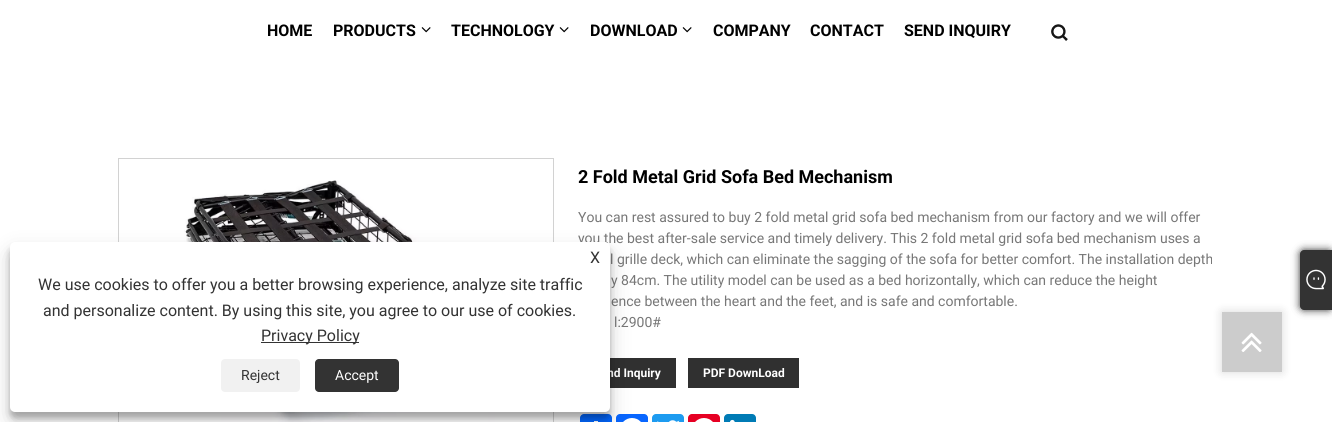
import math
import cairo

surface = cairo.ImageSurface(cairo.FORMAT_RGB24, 1332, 422)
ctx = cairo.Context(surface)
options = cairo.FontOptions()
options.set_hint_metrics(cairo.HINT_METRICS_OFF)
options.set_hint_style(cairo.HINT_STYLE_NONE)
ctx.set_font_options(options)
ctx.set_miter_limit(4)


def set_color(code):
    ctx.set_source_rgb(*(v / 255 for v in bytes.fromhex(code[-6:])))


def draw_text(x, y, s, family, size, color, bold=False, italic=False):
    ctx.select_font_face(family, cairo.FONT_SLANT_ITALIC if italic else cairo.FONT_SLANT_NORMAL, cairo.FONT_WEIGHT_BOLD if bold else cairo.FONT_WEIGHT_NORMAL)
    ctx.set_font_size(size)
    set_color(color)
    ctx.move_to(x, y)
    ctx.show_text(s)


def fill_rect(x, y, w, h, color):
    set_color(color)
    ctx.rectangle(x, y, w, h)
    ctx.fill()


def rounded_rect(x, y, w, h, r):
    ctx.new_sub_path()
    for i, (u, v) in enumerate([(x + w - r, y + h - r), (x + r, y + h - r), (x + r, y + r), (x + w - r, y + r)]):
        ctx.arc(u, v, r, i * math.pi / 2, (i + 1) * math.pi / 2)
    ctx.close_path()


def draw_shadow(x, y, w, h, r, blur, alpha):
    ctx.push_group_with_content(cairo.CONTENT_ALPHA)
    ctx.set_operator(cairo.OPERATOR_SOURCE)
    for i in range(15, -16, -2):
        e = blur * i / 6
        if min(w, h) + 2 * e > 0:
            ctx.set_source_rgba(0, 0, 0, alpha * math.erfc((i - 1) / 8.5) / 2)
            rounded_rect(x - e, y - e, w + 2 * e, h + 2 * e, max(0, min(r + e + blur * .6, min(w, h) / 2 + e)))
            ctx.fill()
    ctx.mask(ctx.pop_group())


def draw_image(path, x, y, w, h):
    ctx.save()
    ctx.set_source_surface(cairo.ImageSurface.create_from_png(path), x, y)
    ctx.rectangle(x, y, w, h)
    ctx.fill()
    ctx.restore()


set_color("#ffffff")
ctx.paint()
draw_text(267, 36, "HOME", "Roboto", 16, "#000000", bold=True)
draw_text(333, 36, "PRODUCTS", "Roboto", 16, "#000000", bold=True)
draw_image("assets/img1.png", 421, 27, 10, 6)
draw_text(451, 36, "TECHNOLOGY", "Roboto", 16, "#000000", bold=True)
draw_image("assets/img1.png", 559, 27, 10, 6)
draw_text(590, 36, "DOWNLOAD", "Roboto", 16, "#000000", bold=True)
draw_image("assets/img1.png", 682, 27, 10, 6)
draw_text(713, 36, "COMPANY", "Roboto", 16, "#000000", bold=True)
draw_text(810, 36, "CONTACT", "Roboto", 16, "#000000", bold=True)
draw_text(904, 36, "SEND INQUIRY", "Roboto", 16, "#000000", bold=True)
draw_image("assets/img2.png", 1051, 24, 17, 17)
ctx.rectangle(118.5, 158.5, 435, 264)
set_color("#d2d2d2")
ctx.set_line_width(1)
ctx.stroke()
draw_image("assets/img3.png", 184, 180, 337, 242)
draw_text(578, 183, "2 Fold Metal Grid Sofa Bed Mechanism", "Roboto", 18, "#000000", bold=True)
draw_text(578, 222, "You can rest assured to buy 2 fold metal grid sofa bed mechanism from our factory and we will offer", "Roboto", 14, "#777777")
draw_text(578, 243, "you the best after-sale service and timely delivery. This 2 fold metal grid sofa bed mechanism uses a", "Roboto", 14, "#777777")
draw_text(610, 264, "l grille deck, which can eliminate the sagging of the sofa for better comfort. The installation depth", "Roboto", 14, "#777777")
draw_text(611, 285, "y 84cm. The utility model can be used as a bed horizontally, which can reduce the height", "Roboto", 14, "#777777")
draw_text(611, 306, "ence between the heart and the feet, and is safe and comfortable.", "Roboto", 14, "#777777")
draw_text(614, 327, "l:2900#", "Roboto", 14, "#777777")
fill_rect(610, 358, 66, 30, "#303030")
draw_text(607, 377, "nd Inquiry", "Roboto", 12, "#ffffff", bold=True)
fill_rect(688, 358, 111, 30, "#303030")
draw_text(703, 377, "PDF DownLoad", "Roboto", 12, "#ffffff", bold=True)
set_color("#0166ff")
rounded_rect(580, 414, 32, 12, 4)
ctx.fill()
fill_rect(594, 421, 4, 1, "#ffffff")
set_color("#0866ff")
rounded_rect(616, 414, 32, 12, 4)
ctx.fill()
draw_image("assets/img4.png", 623, 418, 18, 4)
set_color("#1d9bf0")
rounded_rect(652, 414, 32, 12, 4)
ctx.fill()
draw_image("assets/img5.png", 657, 420, 23, 2)
set_color("#e60023")
rounded_rect(688, 414, 32, 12, 4)
ctx.fill()
draw_image("assets/img6.png", 695, 418, 18, 4)
set_color("#007bb5")
rounded_rect(724, 414, 32, 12, 4)
ctx.fill()
draw_image("assets/img7.png", 730, 419, 5, 3)
set_color("#333333")
draw_shadow(1300, 250, 32, 60, 4, 4, 1)
set_color("#333333")
ctx.new_path()
ctx.move_to(1304, 250)
ctx.line_to(1332, 250)
ctx.line_to(1332, 310)
ctx.line_to(1304, 310)
ctx.curve_to(1302, 310, 1300, 308, 1300, 306)
ctx.line_to(1300, 254)
ctx.curve_to(1300, 252, 1302, 250, 1304, 250)
ctx.close_path()
ctx.fill()
draw_image("assets/img8.png", 1306, 269, 20, 21)
set_color("#000000")
draw_shadow(10, 248, 600, 170, 5, 3, 0.23)
draw_shadow(10, 252, 600, 170, 5, 10, 0.19)
set_color("#ffffff")
rounded_rect(10, 242, 600, 170, 5)
ctx.fill()
draw_text(590, 263, "X", "Roboto", 16, "#333333")
draw_text(38, 290, "We use cookies to offer you a better browsing experience, analyze site traffic", "Roboto", 16, "#333333")
draw_text(43, 316, "and personalize content. By using this site, you agree to our use of cookies.", "Roboto", 16, "#333333")
fill_rect(261, 342, 98, 1, "#333333")
draw_text(261, 341, "Privacy Policy", "Roboto", 16, "#333333")
set_color("#f1f1f1")
rounded_rect(221, 359, 79, 33, 4)
ctx.fill()
draw_text(241, 380, "Reject", "Roboto", 14, "#333333")
rounded_rect(315, 359, 84, 33, 4)
ctx.fill()
draw_text(335, 380, "Accept", "Roboto", 14, "#ffffff")
set_color("#000000")
draw_shadow(1222, 312, 60, 60, 0, 5, 0.15)
fill_rect(1222, 312, 60, 60, "#cccccc")
draw_image("assets/img9.png", 1241, 332, 21, 20)
surface.write_to_png("output.png")
